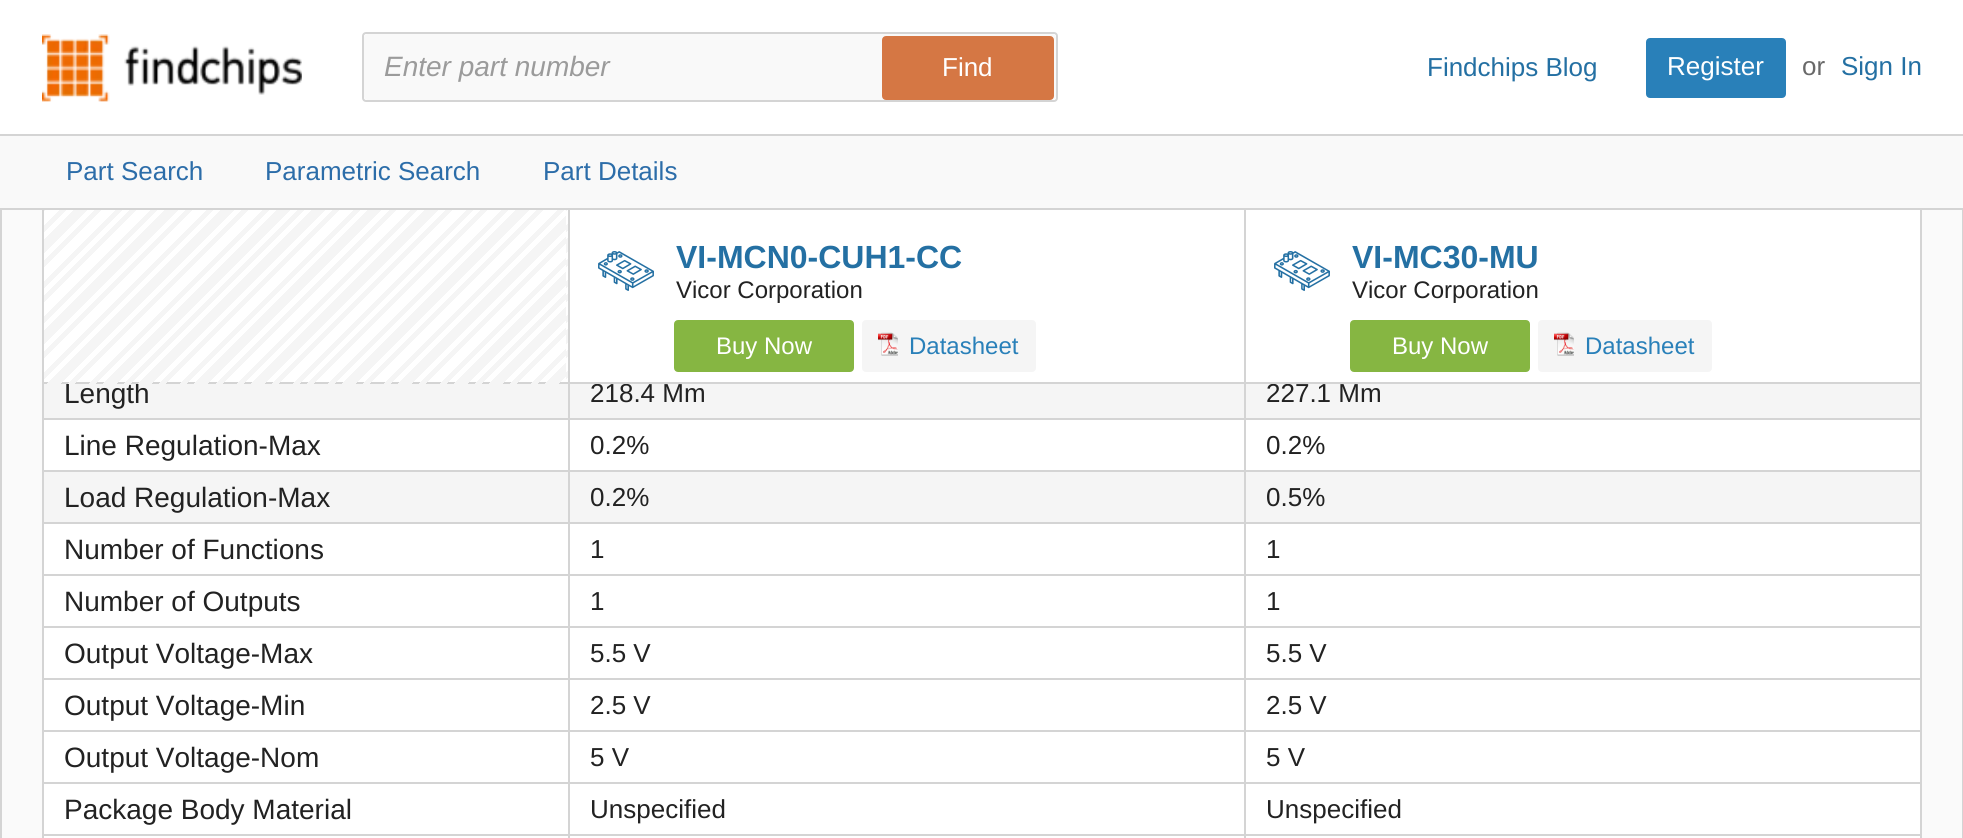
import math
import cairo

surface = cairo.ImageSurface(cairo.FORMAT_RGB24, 1963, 838)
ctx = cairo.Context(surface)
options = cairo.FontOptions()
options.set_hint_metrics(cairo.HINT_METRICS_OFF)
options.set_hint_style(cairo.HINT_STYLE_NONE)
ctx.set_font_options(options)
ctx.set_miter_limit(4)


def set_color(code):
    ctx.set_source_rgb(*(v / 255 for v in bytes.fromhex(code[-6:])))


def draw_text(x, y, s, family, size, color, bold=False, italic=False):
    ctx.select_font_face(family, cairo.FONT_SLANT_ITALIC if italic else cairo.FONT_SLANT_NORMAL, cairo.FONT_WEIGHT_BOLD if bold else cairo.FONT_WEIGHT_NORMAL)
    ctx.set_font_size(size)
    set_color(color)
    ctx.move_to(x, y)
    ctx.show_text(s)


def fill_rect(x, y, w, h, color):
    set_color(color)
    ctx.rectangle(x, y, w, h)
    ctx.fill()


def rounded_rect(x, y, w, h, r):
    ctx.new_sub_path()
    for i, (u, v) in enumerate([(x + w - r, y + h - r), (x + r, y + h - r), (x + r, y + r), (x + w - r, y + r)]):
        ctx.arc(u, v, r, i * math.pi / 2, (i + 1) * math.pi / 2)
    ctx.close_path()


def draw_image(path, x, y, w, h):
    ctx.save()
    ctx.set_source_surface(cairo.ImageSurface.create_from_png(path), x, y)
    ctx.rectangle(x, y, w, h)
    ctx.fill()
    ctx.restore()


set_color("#fafafa")
ctx.paint()
ctx.rectangle(1, -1, 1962, 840)
set_color("#d4d4d4")
ctx.stroke()
fill_rect(0, 0, 1963, 134, "#ffffff")
fill_rect(44, 210, 1876, 172, "#ffffff")
fill_rect(1920, 208, 2, 630, "#d4d4d4")
fill_rect(42, 208, 2, 630, "#d4d4d4")
fill_rect(44, 384, 1876, 34, "#f5f5f5")
draw_text(64, 403, "Length", "Liberation Sans", 28, "#222222")
draw_text(590, 402, "218.4 Mm", "Liberation Sans", 26, "#222222")
draw_text(1266, 402, "227.1 Mm", "Liberation Sans", 26, "#222222")
fill_rect(42, 382, 1880, 2, "#d4d4d4")
fill_rect(568, 208, 2, 176, "#d4d4d4")
fill_rect(1244, 208, 2, 176, "#d4d4d4")
fill_rect(0, 208, 1963, 2, "#d4d4d4")
draw_image("assets/img1.png", 42, 34, 260, 68)
rounded_rect(363, 33, 694, 68, 3)
ctx.stroke()
set_color("#f9f9f9")
rounded_rect(364, 34, 692, 66, 4)
ctx.fill()
draw_text(384, 76, "Enter part number", "Liberation Sans", 28, "#9b9b9b", italic=True)
set_color("#d57744")
rounded_rect(883, 37, 170, 62, 3)
ctx.fill_preserve()
ctx.stroke()
draw_text(942, 76, "Find", "Liberation Sans", 26, "#ffffff")
draw_text(1427, 76, "Findchips Blog", "Liberation Sans", 26, "#2470a3")
set_color("#2980b9")
rounded_rect(1647, 39, 138, 58, 3)
ctx.fill_preserve()
ctx.stroke()
draw_text(1667, 75, "Register", "Liberation Sans", 26, "#ffffff")
draw_text(1802, 75, "or", "Liberation Sans", 26, "#696969")
draw_text(1841, 75, "Sign In", "Liberation Sans", 26, "#2470a3")
fill_rect(0, 136, 1963, 72, "#f9f9f9")
fill_rect(0, 134, 1963, 2, "#d4d4d4")
draw_text(66, 180, "Part Search", "Liberation Sans", 26, "#2c6da9")
draw_text(265, 180, "Parametric Search", "Liberation Sans", 26, "#2c6da9")
draw_text(543, 180, "Part Details", "Liberation Sans", 26, "#2c6da9")
gradient = cairo.LinearGradient(479, 471, 128, 120)
gradient.add_color_stop_rgba(0, 0, 0, 0, 0)
gradient.add_color_stop_rgba(0.01, 0.961, 0.961, 0.961, 0)
gradient.add_color_stop_rgba(0.01, 0.961, 0.961, 0.961, 1)
gradient.add_color_stop_rgba(0.02, 0.961, 0.961, 0.961, 1)
gradient.add_color_stop_rgba(0.02, 0.961, 0.961, 0.961, 0)
gradient.add_color_stop_rgba(0.02, 0.961, 0.961, 0.961, 0)
gradient.add_color_stop_rgba(0.02, 0.961, 0.961, 0.961, 1)
gradient.add_color_stop_rgba(0.03, 0.961, 0.961, 0.961, 1)
gradient.add_color_stop_rgba(0.03, 0.961, 0.961, 0.961, 0)
gradient.add_color_stop_rgba(0.04, 0.961, 0.961, 0.961, 0)
gradient.add_color_stop_rgba(0.04, 0.961, 0.961, 0.961, 1)
gradient.add_color_stop_rgba(0.05, 0.961, 0.961, 0.961, 1)
gradient.add_color_stop_rgba(0.05, 0.961, 0.961, 0.961, 0)
gradient.add_color_stop_rgba(0.06, 0.961, 0.961, 0.961, 0)
gradient.add_color_stop_rgba(0.06, 0.961, 0.961, 0.961, 1)
gradient.add_color_stop_rgba(0.06, 0.961, 0.961, 0.961, 1)
gradient.add_color_stop_rgba(0.06, 0.961, 0.961, 0.961, 0)
gradient.add_color_stop_rgba(0.07, 0.961, 0.961, 0.961, 0)
gradient.add_color_stop_rgba(0.07, 0.961, 0.961, 0.961, 1)
gradient.add_color_stop_rgba(0.08, 0.961, 0.961, 0.961, 1)
gradient.add_color_stop_rgba(0.08, 0.961, 0.961, 0.961, 0)
gradient.add_color_stop_rgba(0.09, 0.961, 0.961, 0.961, 0)
gradient.add_color_stop_rgba(0.09, 0.961, 0.961, 0.961, 1)
gradient.add_color_stop_rgba(0.1, 0.961, 0.961, 0.961, 1)
gradient.add_color_stop_rgba(0.1, 0.961, 0.961, 0.961, 0)
gradient.add_color_stop_rgba(0.1, 0.961, 0.961, 0.961, 0)
gradient.add_color_stop_rgba(0.1, 0.961, 0.961, 0.961, 1)
gradient.add_color_stop_rgba(0.11, 0.961, 0.961, 0.961, 1)
gradient.add_color_stop_rgba(0.11, 0.961, 0.961, 0.961, 0)
gradient.add_color_stop_rgba(0.12, 0.961, 0.961, 0.961, 0)
gradient.add_color_stop_rgba(0.12, 0.961, 0.961, 0.961, 1)
gradient.add_color_stop_rgba(0.13, 0.961, 0.961, 0.961, 1)
gradient.add_color_stop_rgba(0.13, 0.961, 0.961, 0.961, 0)
gradient.add_color_stop_rgba(0.14, 0.961, 0.961, 0.961, 0)
gradient.add_color_stop_rgba(0.14, 0.961, 0.961, 0.961, 1)
gradient.add_color_stop_rgba(0.15, 0.961, 0.961, 0.961, 1)
gradient.add_color_stop_rgba(0.15, 0.961, 0.961, 0.961, 0)
gradient.add_color_stop_rgba(0.15, 0.961, 0.961, 0.961, 0)
gradient.add_color_stop_rgba(0.15, 0.961, 0.961, 0.961, 1)
gradient.add_color_stop_rgba(0.16, 0.961, 0.961, 0.961, 1)
gradient.add_color_stop_rgba(0.16, 0.961, 0.961, 0.961, 0)
gradient.add_color_stop_rgba(0.17, 0.961, 0.961, 0.961, 0)
gradient.add_color_stop_rgba(0.17, 0.961, 0.961, 0.961, 1)
gradient.add_color_stop_rgba(0.18, 0.961, 0.961, 0.961, 1)
gradient.add_color_stop_rgba(0.18, 0.961, 0.961, 0.961, 0)
gradient.add_color_stop_rgba(0.19, 0.961, 0.961, 0.961, 0)
gradient.add_color_stop_rgba(0.19, 0.961, 0.961, 0.961, 1)
gradient.add_color_stop_rgba(0.19, 0.961, 0.961, 0.961, 1)
gradient.add_color_stop_rgba(0.19, 0.961, 0.961, 0.961, 0)
gradient.add_color_stop_rgba(0.2, 0.961, 0.961, 0.961, 0)
gradient.add_color_stop_rgba(0.2, 0.961, 0.961, 0.961, 1)
gradient.add_color_stop_rgba(0.21, 0.961, 0.961, 0.961, 1)
gradient.add_color_stop_rgba(0.21, 0.961, 0.961, 0.961, 0)
gradient.add_color_stop_rgba(0.22, 0.961, 0.961, 0.961, 0)
gradient.add_color_stop_rgba(0.22, 0.961, 0.961, 0.961, 1)
gradient.add_color_stop_rgba(0.23, 0.961, 0.961, 0.961, 1)
gradient.add_color_stop_rgba(0.23, 0.961, 0.961, 0.961, 0)
gradient.add_color_stop_rgba(0.23, 0.961, 0.961, 0.961, 0)
gradient.add_color_stop_rgba(0.23, 0.961, 0.961, 0.961, 1)
gradient.add_color_stop_rgba(0.24, 0.961, 0.961, 0.961, 1)
gradient.add_color_stop_rgba(0.24, 0.961, 0.961, 0.961, 0)
gradient.add_color_stop_rgba(0.25, 0.961, 0.961, 0.961, 0)
gradient.add_color_stop_rgba(0.25, 0.961, 0.961, 0.961, 1)
gradient.add_color_stop_rgba(0.26, 0.961, 0.961, 0.961, 1)
gradient.add_color_stop_rgba(0.26, 0.961, 0.961, 0.961, 0)
gradient.add_color_stop_rgba(0.27, 0.961, 0.961, 0.961, 0)
gradient.add_color_stop_rgba(0.27, 0.961, 0.961, 0.961, 1)
gradient.add_color_stop_rgba(0.27, 0.961, 0.961, 0.961, 1)
gradient.add_color_stop_rgba(0.27, 0.961, 0.961, 0.961, 0)
gradient.add_color_stop_rgba(0.28, 0.961, 0.961, 0.961, 0)
gradient.add_color_stop_rgba(0.28, 0.961, 0.961, 0.961, 1)
gradient.add_color_stop_rgba(0.29, 0.961, 0.961, 0.961, 1)
gradient.add_color_stop_rgba(0.29, 0.961, 0.961, 0.961, 0)
gradient.add_color_stop_rgba(0.3, 0.961, 0.961, 0.961, 0)
gradient.add_color_stop_rgba(0.3, 0.961, 0.961, 0.961, 1)
gradient.add_color_stop_rgba(0.31, 0.961, 0.961, 0.961, 1)
gradient.add_color_stop_rgba(0.31, 0.961, 0.961, 0.961, 0)
gradient.add_color_stop_rgba(0.31, 0.961, 0.961, 0.961, 0)
gradient.add_color_stop_rgba(0.31, 0.961, 0.961, 0.961, 1)
gradient.add_color_stop_rgba(0.32, 0.961, 0.961, 0.961, 1)
gradient.add_color_stop_rgba(0.32, 0.961, 0.961, 0.961, 0)
gradient.add_color_stop_rgba(0.33, 0.961, 0.961, 0.961, 0)
gradient.add_color_stop_rgba(0.33, 0.961, 0.961, 0.961, 1)
gradient.add_color_stop_rgba(0.34, 0.961, 0.961, 0.961, 1)
gradient.add_color_stop_rgba(0.34, 0.961, 0.961, 0.961, 0)
gradient.add_color_stop_rgba(0.35, 0.961, 0.961, 0.961, 0)
gradient.add_color_stop_rgba(0.35, 0.961, 0.961, 0.961, 1)
gradient.add_color_stop_rgba(0.35, 0.961, 0.961, 0.961, 1)
gradient.add_color_stop_rgba(0.35, 0.961, 0.961, 0.961, 0)
gradient.add_color_stop_rgba(0.36, 0.961, 0.961, 0.961, 0)
gradient.add_color_stop_rgba(0.36, 0.961, 0.961, 0.961, 1)
gradient.add_color_stop_rgba(0.37, 0.961, 0.961, 0.961, 1)
gradient.add_color_stop_rgba(0.37, 0.961, 0.961, 0.961, 0)
gradient.add_color_stop_rgba(0.38, 0.961, 0.961, 0.961, 0)
gradient.add_color_stop_rgba(0.38, 0.961, 0.961, 0.961, 1)
gradient.add_color_stop_rgba(0.39, 0.961, 0.961, 0.961, 1)
gradient.add_color_stop_rgba(0.39, 0.961, 0.961, 0.961, 0)
gradient.add_color_stop_rgba(0.4, 0.961, 0.961, 0.961, 0)
gradient.add_color_stop_rgba(0.4, 0.961, 0.961, 0.961, 1)
gradient.add_color_stop_rgba(0.4, 0.961, 0.961, 0.961, 1)
gradient.add_color_stop_rgba(0.4, 0.961, 0.961, 0.961, 0)
gradient.add_color_stop_rgba(0.41, 0.961, 0.961, 0.961, 0)
gradient.add_color_stop_rgba(0.41, 0.961, 0.961, 0.961, 1)
gradient.add_color_stop_rgba(0.42, 0.961, 0.961, 0.961, 1)
gradient.add_color_stop_rgba(0.42, 0.961, 0.961, 0.961, 0)
gradient.add_color_stop_rgba(0.43, 0.961, 0.961, 0.961, 0)
gradient.add_color_stop_rgba(0.43, 0.961, 0.961, 0.961, 1)
gradient.add_color_stop_rgba(0.44, 0.961, 0.961, 0.961, 1)
gradient.add_color_stop_rgba(0.44, 0.961, 0.961, 0.961, 0)
gradient.add_color_stop_rgba(0.44, 0.961, 0.961, 0.961, 0)
gradient.add_color_stop_rgba(0.44, 0.961, 0.961, 0.961, 1)
gradient.add_color_stop_rgba(0.45, 0.961, 0.961, 0.961, 1)
gradient.add_color_stop_rgba(0.45, 0.961, 0.961, 0.961, 0)
gradient.add_color_stop_rgba(0.46, 0.961, 0.961, 0.961, 0)
gradient.add_color_stop_rgba(0.46, 0.961, 0.961, 0.961, 1)
gradient.add_color_stop_rgba(0.47, 0.961, 0.961, 0.961, 1)
gradient.add_color_stop_rgba(0.47, 0.961, 0.961, 0.961, 0)
gradient.add_color_stop_rgba(0.48, 0.961, 0.961, 0.961, 0)
gradient.add_color_stop_rgba(0.48, 0.961, 0.961, 0.961, 1)
gradient.add_color_stop_rgba(0.48, 0.961, 0.961, 0.961, 1)
gradient.add_color_stop_rgba(0.48, 0.961, 0.961, 0.961, 0)
gradient.add_color_stop_rgba(0.49, 0.961, 0.961, 0.961, 0)
gradient.add_color_stop_rgba(0.49, 0.961, 0.961, 0.961, 1)
gradient.add_color_stop_rgba(0.5, 0.961, 0.961, 0.961, 1)
gradient.add_color_stop_rgba(0.5, 0.961, 0.961, 0.961, 0)
gradient.add_color_stop_rgba(0.51, 0.961, 0.961, 0.961, 0)
gradient.add_color_stop_rgba(0.51, 0.961, 0.961, 0.961, 1)
gradient.add_color_stop_rgba(0.52, 0.961, 0.961, 0.961, 1)
gradient.add_color_stop_rgba(0.52, 0.961, 0.961, 0.961, 0)
gradient.add_color_stop_rgba(0.52, 0.961, 0.961, 0.961, 0)
gradient.add_color_stop_rgba(0.52, 0.961, 0.961, 0.961, 1)
gradient.add_color_stop_rgba(0.53, 0.961, 0.961, 0.961, 1)
gradient.add_color_stop_rgba(0.53, 0.961, 0.961, 0.961, 0)
gradient.add_color_stop_rgba(0.54, 0.961, 0.961, 0.961, 0)
gradient.add_color_stop_rgba(0.54, 0.961, 0.961, 0.961, 1)
gradient.add_color_stop_rgba(0.55, 0.961, 0.961, 0.961, 1)
gradient.add_color_stop_rgba(0.55, 0.961, 0.961, 0.961, 0)
gradient.add_color_stop_rgba(0.56, 0.961, 0.961, 0.961, 0)
gradient.add_color_stop_rgba(0.56, 0.961, 0.961, 0.961, 1)
gradient.add_color_stop_rgba(0.56, 0.961, 0.961, 0.961, 1)
gradient.add_color_stop_rgba(0.56, 0.961, 0.961, 0.961, 0)
gradient.add_color_stop_rgba(0.57, 0.961, 0.961, 0.961, 0)
gradient.add_color_stop_rgba(0.57, 0.961, 0.961, 0.961, 1)
gradient.add_color_stop_rgba(0.58, 0.961, 0.961, 0.961, 1)
gradient.add_color_stop_rgba(0.58, 0.961, 0.961, 0.961, 0)
gradient.add_color_stop_rgba(0.59, 0.961, 0.961, 0.961, 0)
gradient.add_color_stop_rgba(0.59, 0.961, 0.961, 0.961, 1)
gradient.add_color_stop_rgba(0.6, 0.961, 0.961, 0.961, 1)
gradient.add_color_stop_rgba(0.6, 0.961, 0.961, 0.961, 0)
gradient.add_color_stop_rgba(0.6, 0.961, 0.961, 0.961, 0)
gradient.add_color_stop_rgba(0.6, 0.961, 0.961, 0.961, 1)
gradient.add_color_stop_rgba(0.61, 0.961, 0.961, 0.961, 1)
gradient.add_color_stop_rgba(0.61, 0.961, 0.961, 0.961, 0)
gradient.add_color_stop_rgba(0.62, 0.961, 0.961, 0.961, 0)
gradient.add_color_stop_rgba(0.62, 0.961, 0.961, 0.961, 1)
gradient.add_color_stop_rgba(0.63, 0.961, 0.961, 0.961, 1)
gradient.add_color_stop_rgba(0.63, 0.961, 0.961, 0.961, 0)
gradient.add_color_stop_rgba(0.64, 0.961, 0.961, 0.961, 0)
gradient.add_color_stop_rgba(0.64, 0.961, 0.961, 0.961, 1)
gradient.add_color_stop_rgba(0.65, 0.961, 0.961, 0.961, 1)
gradient.add_color_stop_rgba(0.65, 0.961, 0.961, 0.961, 0)
gradient.add_color_stop_rgba(0.65, 0.961, 0.961, 0.961, 0)
gradient.add_color_stop_rgba(0.65, 0.961, 0.961, 0.961, 1)
gradient.add_color_stop_rgba(0.66, 0.961, 0.961, 0.961, 1)
gradient.add_color_stop_rgba(0.66, 0.961, 0.961, 0.961, 0)
gradient.add_color_stop_rgba(0.67, 0.961, 0.961, 0.961, 0)
gradient.add_color_stop_rgba(0.67, 0.961, 0.961, 0.961, 1)
gradient.add_color_stop_rgba(0.68, 0.961, 0.961, 0.961, 1)
gradient.add_color_stop_rgba(0.68, 0.961, 0.961, 0.961, 0)
gradient.add_color_stop_rgba(0.69, 0.961, 0.961, 0.961, 0)
gradient.add_color_stop_rgba(0.69, 0.961, 0.961, 0.961, 1)
gradient.add_color_stop_rgba(0.69, 0.961, 0.961, 0.961, 1)
gradient.add_color_stop_rgba(0.69, 0.961, 0.961, 0.961, 0)
gradient.add_color_stop_rgba(0.7, 0.961, 0.961, 0.961, 0)
gradient.add_color_stop_rgba(0.7, 0.961, 0.961, 0.961, 1)
gradient.add_color_stop_rgba(0.71, 0.961, 0.961, 0.961, 1)
gradient.add_color_stop_rgba(0.71, 0.961, 0.961, 0.961, 0)
gradient.add_color_stop_rgba(0.72, 0.961, 0.961, 0.961, 0)
gradient.add_color_stop_rgba(0.72, 0.961, 0.961, 0.961, 1)
gradient.add_color_stop_rgba(0.73, 0.961, 0.961, 0.961, 1)
gradient.add_color_stop_rgba(0.73, 0.961, 0.961, 0.961, 0)
gradient.add_color_stop_rgba(0.73, 0.961, 0.961, 0.961, 0)
gradient.add_color_stop_rgba(0.73, 0.961, 0.961, 0.961, 1)
gradient.add_color_stop_rgba(0.74, 0.961, 0.961, 0.961, 1)
gradient.add_color_stop_rgba(0.74, 0.961, 0.961, 0.961, 0)
gradient.add_color_stop_rgba(0.75, 0.961, 0.961, 0.961, 0)
gradient.add_color_stop_rgba(0.75, 0.961, 0.961, 0.961, 1)
gradient.add_color_stop_rgba(0.76, 0.961, 0.961, 0.961, 1)
gradient.add_color_stop_rgba(0.76, 0.961, 0.961, 0.961, 0)
gradient.add_color_stop_rgba(0.77, 0.961, 0.961, 0.961, 0)
gradient.add_color_stop_rgba(0.77, 0.961, 0.961, 0.961, 1)
gradient.add_color_stop_rgba(0.77, 0.961, 0.961, 0.961, 1)
gradient.add_color_stop_rgba(0.77, 0.961, 0.961, 0.961, 0)
gradient.add_color_stop_rgba(0.78, 0.961, 0.961, 0.961, 0)
gradient.add_color_stop_rgba(0.78, 0.961, 0.961, 0.961, 1)
gradient.add_color_stop_rgba(0.79, 0.961, 0.961, 0.961, 1)
gradient.add_color_stop_rgba(0.79, 0.961, 0.961, 0.961, 0)
gradient.add_color_stop_rgba(0.8, 0.961, 0.961, 0.961, 0)
gradient.add_color_stop_rgba(0.8, 0.961, 0.961, 0.961, 1)
gradient.add_color_stop_rgba(0.81, 0.961, 0.961, 0.961, 1)
gradient.add_color_stop_rgba(0.81, 0.961, 0.961, 0.961, 0)
gradient.add_color_stop_rgba(0.81, 0.961, 0.961, 0.961, 0)
gradient.add_color_stop_rgba(0.81, 0.961, 0.961, 0.961, 1)
gradient.add_color_stop_rgba(0.82, 0.961, 0.961, 0.961, 1)
gradient.add_color_stop_rgba(0.82, 0.961, 0.961, 0.961, 0)
gradient.add_color_stop_rgba(0.83, 0.961, 0.961, 0.961, 0)
gradient.add_color_stop_rgba(0.83, 0.961, 0.961, 0.961, 1)
gradient.add_color_stop_rgba(0.84, 0.961, 0.961, 0.961, 1)
gradient.add_color_stop_rgba(0.84, 0.961, 0.961, 0.961, 0)
gradient.add_color_stop_rgba(0.85, 0.961, 0.961, 0.961, 0)
gradient.add_color_stop_rgba(0.85, 0.961, 0.961, 0.961, 1)
gradient.add_color_stop_rgba(0.85, 0.961, 0.961, 0.961, 1)
gradient.add_color_stop_rgba(0.85, 0.961, 0.961, 0.961, 0)
gradient.add_color_stop_rgba(0.86, 0.961, 0.961, 0.961, 0)
gradient.add_color_stop_rgba(0.86, 0.961, 0.961, 0.961, 1)
gradient.add_color_stop_rgba(0.87, 0.961, 0.961, 0.961, 1)
gradient.add_color_stop_rgba(0.87, 0.961, 0.961, 0.961, 0)
gradient.add_color_stop_rgba(0.88, 0.961, 0.961, 0.961, 0)
gradient.add_color_stop_rgba(0.88, 0.961, 0.961, 0.961, 1)
gradient.add_color_stop_rgba(0.89, 0.961, 0.961, 0.961, 1)
gradient.add_color_stop_rgba(0.89, 0.961, 0.961, 0.961, 0)
gradient.add_color_stop_rgba(0.9, 0.961, 0.961, 0.961, 0)
gradient.add_color_stop_rgba(0.9, 0.961, 0.961, 0.961, 1)
gradient.add_color_stop_rgba(0.9, 0.961, 0.961, 0.961, 1)
gradient.add_color_stop_rgba(0.9, 0.961, 0.961, 0.961, 0)
gradient.add_color_stop_rgba(0.91, 0.961, 0.961, 0.961, 0)
gradient.add_color_stop_rgba(0.91, 0.961, 0.961, 0.961, 1)
gradient.add_color_stop_rgba(0.92, 0.961, 0.961, 0.961, 1)
gradient.add_color_stop_rgba(0.92, 0.961, 0.961, 0.961, 0)
gradient.add_color_stop_rgba(0.93, 0.961, 0.961, 0.961, 0)
gradient.add_color_stop_rgba(0.93, 0.961, 0.961, 0.961, 1)
gradient.add_color_stop_rgba(0.94, 0.961, 0.961, 0.961, 1)
gradient.add_color_stop_rgba(0.94, 0.961, 0.961, 0.961, 0)
gradient.add_color_stop_rgba(0.94, 0.961, 0.961, 0.961, 0)
gradient.add_color_stop_rgba(0.94, 0.961, 0.961, 0.961, 1)
gradient.add_color_stop_rgba(0.95, 0.961, 0.961, 0.961, 1)
gradient.add_color_stop_rgba(0.95, 0.961, 0.961, 0.961, 0)
gradient.add_color_stop_rgba(0.96, 0.961, 0.961, 0.961, 0)
gradient.add_color_stop_rgba(0.96, 0.961, 0.961, 0.961, 1)
gradient.add_color_stop_rgba(0.97, 0.961, 0.961, 0.961, 1)
gradient.add_color_stop_rgba(0.97, 0.961, 0.961, 0.961, 0)
gradient.add_color_stop_rgba(0.98, 0.961, 0.961, 0.961, 0)
gradient.add_color_stop_rgba(0.98, 0.961, 0.961, 0.961, 1)
gradient.add_color_stop_rgba(0.98, 0.961, 0.961, 0.961, 1)
gradient.add_color_stop_rgba(0.98, 0.961, 0.961, 0.961, 0)
gradient.add_color_stop_rgba(0.99, 0.961, 0.961, 0.961, 0)
gradient.add_color_stop_rgba(0.99, 0.961, 0.961, 0.961, 1)
gradient.add_color_stop_rgba(1, 0.961, 0.961, 0.961, 1)
ctx.set_source(gradient)
ctx.rectangle(44, 210, 522, 174)
ctx.fill()
gradient = cairo.LinearGradient(1001, 471, 650, 120)
gradient.add_color_stop_rgba(0, 0, 0, 0, 0)
gradient.add_color_stop_rgba(0.01, 0.961, 0.961, 0.961, 0)
gradient.add_color_stop_rgba(0.01, 0.961, 0.961, 0.961, 1)
gradient.add_color_stop_rgba(0.02, 0.961, 0.961, 0.961, 1)
gradient.add_color_stop_rgba(0.02, 0.961, 0.961, 0.961, 0)
gradient.add_color_stop_rgba(0.02, 0.961, 0.961, 0.961, 0)
gradient.add_color_stop_rgba(0.02, 0.961, 0.961, 0.961, 1)
gradient.add_color_stop_rgba(0.03, 0.961, 0.961, 0.961, 1)
gradient.add_color_stop_rgba(0.03, 0.961, 0.961, 0.961, 0)
gradient.add_color_stop_rgba(0.04, 0.961, 0.961, 0.961, 0)
gradient.add_color_stop_rgba(0.04, 0.961, 0.961, 0.961, 1)
gradient.add_color_stop_rgba(0.05, 0.961, 0.961, 0.961, 1)
gradient.add_color_stop_rgba(0.05, 0.961, 0.961, 0.961, 0)
gradient.add_color_stop_rgba(0.06, 0.961, 0.961, 0.961, 0)
gradient.add_color_stop_rgba(0.06, 0.961, 0.961, 0.961, 1)
gradient.add_color_stop_rgba(0.06, 0.961, 0.961, 0.961, 1)
gradient.add_color_stop_rgba(0.06, 0.961, 0.961, 0.961, 0)
gradient.add_color_stop_rgba(0.07, 0.961, 0.961, 0.961, 0)
gradient.add_color_stop_rgba(0.07, 0.961, 0.961, 0.961, 1)
gradient.add_color_stop_rgba(0.08, 0.961, 0.961, 0.961, 1)
gradient.add_color_stop_rgba(0.08, 0.961, 0.961, 0.961, 0)
gradient.add_color_stop_rgba(0.09, 0.961, 0.961, 0.961, 0)
gradient.add_color_stop_rgba(0.09, 0.961, 0.961, 0.961, 1)
gradient.add_color_stop_rgba(0.1, 0.961, 0.961, 0.961, 1)
gradient.add_color_stop_rgba(0.1, 0.961, 0.961, 0.961, 0)
gradient.add_color_stop_rgba(0.1, 0.961, 0.961, 0.961, 0)
gradient.add_color_stop_rgba(0.1, 0.961, 0.961, 0.961, 1)
gradient.add_color_stop_rgba(0.11, 0.961, 0.961, 0.961, 1)
gradient.add_color_stop_rgba(0.11, 0.961, 0.961, 0.961, 0)
gradient.add_color_stop_rgba(0.12, 0.961, 0.961, 0.961, 0)
gradient.add_color_stop_rgba(0.12, 0.961, 0.961, 0.961, 1)
gradient.add_color_stop_rgba(0.13, 0.961, 0.961, 0.961, 1)
gradient.add_color_stop_rgba(0.13, 0.961, 0.961, 0.961, 0)
gradient.add_color_stop_rgba(0.14, 0.961, 0.961, 0.961, 0)
gradient.add_color_stop_rgba(0.14, 0.961, 0.961, 0.961, 1)
gradient.add_color_stop_rgba(0.15, 0.961, 0.961, 0.961, 1)
gradient.add_color_stop_rgba(0.15, 0.961, 0.961, 0.961, 0)
gradient.add_color_stop_rgba(0.15, 0.961, 0.961, 0.961, 0)
gradient.add_color_stop_rgba(0.15, 0.961, 0.961, 0.961, 1)
gradient.add_color_stop_rgba(0.16, 0.961, 0.961, 0.961, 1)
gradient.add_color_stop_rgba(0.16, 0.961, 0.961, 0.961, 0)
gradient.add_color_stop_rgba(0.17, 0.961, 0.961, 0.961, 0)
gradient.add_color_stop_rgba(0.17, 0.961, 0.961, 0.961, 1)
gradient.add_color_stop_rgba(0.18, 0.961, 0.961, 0.961, 1)
gradient.add_color_stop_rgba(0.18, 0.961, 0.961, 0.961, 0)
gradient.add_color_stop_rgba(0.19, 0.961, 0.961, 0.961, 0)
gradient.add_color_stop_rgba(0.19, 0.961, 0.961, 0.961, 1)
gradient.add_color_stop_rgba(0.19, 0.961, 0.961, 0.961, 1)
gradient.add_color_stop_rgba(0.19, 0.961, 0.961, 0.961, 0)
gradient.add_color_stop_rgba(0.2, 0.961, 0.961, 0.961, 0)
gradient.add_color_stop_rgba(0.2, 0.961, 0.961, 0.961, 1)
gradient.add_color_stop_rgba(0.21, 0.961, 0.961, 0.961, 1)
gradient.add_color_stop_rgba(0.21, 0.961, 0.961, 0.961, 0)
gradient.add_color_stop_rgba(0.22, 0.961, 0.961, 0.961, 0)
gradient.add_color_stop_rgba(0.22, 0.961, 0.961, 0.961, 1)
gradient.add_color_stop_rgba(0.23, 0.961, 0.961, 0.961, 1)
gradient.add_color_stop_rgba(0.23, 0.961, 0.961, 0.961, 0)
gradient.add_color_stop_rgba(0.23, 0.961, 0.961, 0.961, 0)
gradient.add_color_stop_rgba(0.23, 0.961, 0.961, 0.961, 1)
gradient.add_color_stop_rgba(0.24, 0.961, 0.961, 0.961, 1)
gradient.add_color_stop_rgba(0.24, 0.961, 0.961, 0.961, 0)
gradient.add_color_stop_rgba(0.25, 0.961, 0.961, 0.961, 0)
gradient.add_color_stop_rgba(0.25, 0.961, 0.961, 0.961, 1)
gradient.add_color_stop_rgba(0.26, 0.961, 0.961, 0.961, 1)
gradient.add_color_stop_rgba(0.26, 0.961, 0.961, 0.961, 0)
gradient.add_color_stop_rgba(0.27, 0.961, 0.961, 0.961, 0)
gradient.add_color_stop_rgba(0.27, 0.961, 0.961, 0.961, 1)
gradient.add_color_stop_rgba(0.27, 0.961, 0.961, 0.961, 1)
gradient.add_color_stop_rgba(0.27, 0.961, 0.961, 0.961, 0)
gradient.add_color_stop_rgba(0.28, 0.961, 0.961, 0.961, 0)
gradient.add_color_stop_rgba(0.28, 0.961, 0.961, 0.961, 1)
gradient.add_color_stop_rgba(0.29, 0.961, 0.961, 0.961, 1)
gradient.add_color_stop_rgba(0.29, 0.961, 0.961, 0.961, 0)
gradient.add_color_stop_rgba(0.3, 0.961, 0.961, 0.961, 0)
gradient.add_color_stop_rgba(0.3, 0.961, 0.961, 0.961, 1)
gradient.add_color_stop_rgba(0.31, 0.961, 0.961, 0.961, 1)
gradient.add_color_stop_rgba(0.31, 0.961, 0.961, 0.961, 0)
gradient.add_color_stop_rgba(0.31, 0.961, 0.961, 0.961, 0)
gradient.add_color_stop_rgba(0.31, 0.961, 0.961, 0.961, 1)
gradient.add_color_stop_rgba(0.32, 0.961, 0.961, 0.961, 1)
gradient.add_color_stop_rgba(0.32, 0.961, 0.961, 0.961, 0)
gradient.add_color_stop_rgba(0.33, 0.961, 0.961, 0.961, 0)
gradient.add_color_stop_rgba(0.33, 0.961, 0.961, 0.961, 1)
gradient.add_color_stop_rgba(0.34, 0.961, 0.961, 0.961, 1)
gradient.add_color_stop_rgba(0.34, 0.961, 0.961, 0.961, 0)
gradient.add_color_stop_rgba(0.35, 0.961, 0.961, 0.961, 0)
gradient.add_color_stop_rgba(0.35, 0.961, 0.961, 0.961, 1)
gradient.add_color_stop_rgba(0.35, 0.961, 0.961, 0.961, 1)
gradient.add_color_stop_rgba(0.35, 0.961, 0.961, 0.961, 0)
gradient.add_color_stop_rgba(0.36, 0.961, 0.961, 0.961, 0)
gradient.add_color_stop_rgba(0.36, 0.961, 0.961, 0.961, 1)
gradient.add_color_stop_rgba(0.37, 0.961, 0.961, 0.961, 1)
gradient.add_color_stop_rgba(0.37, 0.961, 0.961, 0.961, 0)
gradient.add_color_stop_rgba(0.38, 0.961, 0.961, 0.961, 0)
gradient.add_color_stop_rgba(0.38, 0.961, 0.961, 0.961, 1)
gradient.add_color_stop_rgba(0.39, 0.961, 0.961, 0.961, 1)
gradient.add_color_stop_rgba(0.39, 0.961, 0.961, 0.961, 0)
gradient.add_color_stop_rgba(0.4, 0.961, 0.961, 0.961, 0)
gradient.add_color_stop_rgba(0.4, 0.961, 0.961, 0.961, 1)
gradient.add_color_stop_rgba(0.4, 0.961, 0.961, 0.961, 1)
gradient.add_color_stop_rgba(0.4, 0.961, 0.961, 0.961, 0)
gradient.add_color_stop_rgba(0.41, 0.961, 0.961, 0.961, 0)
gradient.add_color_stop_rgba(0.41, 0.961, 0.961, 0.961, 1)
gradient.add_color_stop_rgba(0.42, 0.961, 0.961, 0.961, 1)
gradient.add_color_stop_rgba(0.42, 0.961, 0.961, 0.961, 0)
gradient.add_color_stop_rgba(0.43, 0.961, 0.961, 0.961, 0)
gradient.add_color_stop_rgba(0.43, 0.961, 0.961, 0.961, 1)
gradient.add_color_stop_rgba(0.44, 0.961, 0.961, 0.961, 1)
gradient.add_color_stop_rgba(0.44, 0.961, 0.961, 0.961, 0)
gradient.add_color_stop_rgba(0.44, 0.961, 0.961, 0.961, 0)
gradient.add_color_stop_rgba(0.44, 0.961, 0.961, 0.961, 1)
gradient.add_color_stop_rgba(0.45, 0.961, 0.961, 0.961, 1)
gradient.add_color_stop_rgba(0.45, 0.961, 0.961, 0.961, 0)
gradient.add_color_stop_rgba(0.46, 0.961, 0.961, 0.961, 0)
gradient.add_color_stop_rgba(0.46, 0.961, 0.961, 0.961, 1)
gradient.add_color_stop_rgba(0.47, 0.961, 0.961, 0.961, 1)
gradient.add_color_stop_rgba(0.47, 0.961, 0.961, 0.961, 0)
gradient.add_color_stop_rgba(0.48, 0.961, 0.961, 0.961, 0)
gradient.add_color_stop_rgba(0.48, 0.961, 0.961, 0.961, 1)
gradient.add_color_stop_rgba(0.48, 0.961, 0.961, 0.961, 1)
gradient.add_color_stop_rgba(0.48, 0.961, 0.961, 0.961, 0)
gradient.add_color_stop_rgba(0.49, 0.961, 0.961, 0.961, 0)
gradient.add_color_stop_rgba(0.49, 0.961, 0.961, 0.961, 1)
gradient.add_color_stop_rgba(0.5, 0.961, 0.961, 0.961, 1)
gradient.add_color_stop_rgba(0.5, 0.961, 0.961, 0.961, 0)
gradient.add_color_stop_rgba(0.51, 0.961, 0.961, 0.961, 0)
gradient.add_color_stop_rgba(0.51, 0.961, 0.961, 0.961, 1)
gradient.add_color_stop_rgba(0.52, 0.961, 0.961, 0.961, 1)
gradient.add_color_stop_rgba(0.52, 0.961, 0.961, 0.961, 0)
gradient.add_color_stop_rgba(0.52, 0.961, 0.961, 0.961, 0)
gradient.add_color_stop_rgba(0.52, 0.961, 0.961, 0.961, 1)
gradient.add_color_stop_rgba(0.53, 0.961, 0.961, 0.961, 1)
gradient.add_color_stop_rgba(0.53, 0.961, 0.961, 0.961, 0)
gradient.add_color_stop_rgba(0.54, 0.961, 0.961, 0.961, 0)
gradient.add_color_stop_rgba(0.54, 0.961, 0.961, 0.961, 1)
gradient.add_color_stop_rgba(0.55, 0.961, 0.961, 0.961, 1)
gradient.add_color_stop_rgba(0.55, 0.961, 0.961, 0.961, 0)
gradient.add_color_stop_rgba(0.56, 0.961, 0.961, 0.961, 0)
gradient.add_color_stop_rgba(0.56, 0.961, 0.961, 0.961, 1)
gradient.add_color_stop_rgba(0.56, 0.961, 0.961, 0.961, 1)
gradient.add_color_stop_rgba(0.56, 0.961, 0.961, 0.961, 0)
gradient.add_color_stop_rgba(0.57, 0.961, 0.961, 0.961, 0)
gradient.add_color_stop_rgba(0.57, 0.961, 0.961, 0.961, 1)
gradient.add_color_stop_rgba(0.58, 0.961, 0.961, 0.961, 1)
gradient.add_color_stop_rgba(0.58, 0.961, 0.961, 0.961, 0)
gradient.add_color_stop_rgba(0.59, 0.961, 0.961, 0.961, 0)
gradient.add_color_stop_rgba(0.59, 0.961, 0.961, 0.961, 1)
gradient.add_color_stop_rgba(0.6, 0.961, 0.961, 0.961, 1)
gradient.add_color_stop_rgba(0.6, 0.961, 0.961, 0.961, 0)
gradient.add_color_stop_rgba(0.6, 0.961, 0.961, 0.961, 0)
gradient.add_color_stop_rgba(0.6, 0.961, 0.961, 0.961, 1)
gradient.add_color_stop_rgba(0.61, 0.961, 0.961, 0.961, 1)
gradient.add_color_stop_rgba(0.61, 0.961, 0.961, 0.961, 0)
gradient.add_color_stop_rgba(0.62, 0.961, 0.961, 0.961, 0)
gradient.add_color_stop_rgba(0.62, 0.961, 0.961, 0.961, 1)
gradient.add_color_stop_rgba(0.63, 0.961, 0.961, 0.961, 1)
gradient.add_color_stop_rgba(0.63, 0.961, 0.961, 0.961, 0)
gradient.add_color_stop_rgba(0.64, 0.961, 0.961, 0.961, 0)
gradient.add_color_stop_rgba(0.64, 0.961, 0.961, 0.961, 1)
gradient.add_color_stop_rgba(0.65, 0.961, 0.961, 0.961, 1)
gradient.add_color_stop_rgba(0.65, 0.961, 0.961, 0.961, 0)
gradient.add_color_stop_rgba(0.65, 0.961, 0.961, 0.961, 0)
gradient.add_color_stop_rgba(0.65, 0.961, 0.961, 0.961, 1)
gradient.add_color_stop_rgba(0.66, 0.961, 0.961, 0.961, 1)
gradient.add_color_stop_rgba(0.66, 0.961, 0.961, 0.961, 0)
gradient.add_color_stop_rgba(0.67, 0.961, 0.961, 0.961, 0)
gradient.add_color_stop_rgba(0.67, 0.961, 0.961, 0.961, 1)
gradient.add_color_stop_rgba(0.68, 0.961, 0.961, 0.961, 1)
gradient.add_color_stop_rgba(0.68, 0.961, 0.961, 0.961, 0)
gradient.add_color_stop_rgba(0.69, 0.961, 0.961, 0.961, 0)
gradient.add_color_stop_rgba(0.69, 0.961, 0.961, 0.961, 1)
gradient.add_color_stop_rgba(0.69, 0.961, 0.961, 0.961, 1)
gradient.add_color_stop_rgba(0.69, 0.961, 0.961, 0.961, 0)
gradient.add_color_stop_rgba(0.7, 0.961, 0.961, 0.961, 0)
gradient.add_color_stop_rgba(0.7, 0.961, 0.961, 0.961, 1)
gradient.add_color_stop_rgba(0.71, 0.961, 0.961, 0.961, 1)
gradient.add_color_stop_rgba(0.71, 0.961, 0.961, 0.961, 0)
gradient.add_color_stop_rgba(0.72, 0.961, 0.961, 0.961, 0)
gradient.add_color_stop_rgba(0.72, 0.961, 0.961, 0.961, 1)
gradient.add_color_stop_rgba(0.73, 0.961, 0.961, 0.961, 1)
gradient.add_color_stop_rgba(0.73, 0.961, 0.961, 0.961, 0)
gradient.add_color_stop_rgba(0.73, 0.961, 0.961, 0.961, 0)
gradient.add_color_stop_rgba(0.73, 0.961, 0.961, 0.961, 1)
gradient.add_color_stop_rgba(0.74, 0.961, 0.961, 0.961, 1)
gradient.add_color_stop_rgba(0.74, 0.961, 0.961, 0.961, 0)
gradient.add_color_stop_rgba(0.75, 0.961, 0.961, 0.961, 0)
gradient.add_color_stop_rgba(0.75, 0.961, 0.961, 0.961, 1)
gradient.add_color_stop_rgba(0.76, 0.961, 0.961, 0.961, 1)
gradient.add_color_stop_rgba(0.76, 0.961, 0.961, 0.961, 0)
gradient.add_color_stop_rgba(0.77, 0.961, 0.961, 0.961, 0)
gradient.add_color_stop_rgba(0.77, 0.961, 0.961, 0.961, 1)
gradient.add_color_stop_rgba(0.77, 0.961, 0.961, 0.961, 1)
gradient.add_color_stop_rgba(0.77, 0.961, 0.961, 0.961, 0)
gradient.add_color_stop_rgba(0.78, 0.961, 0.961, 0.961, 0)
gradient.add_color_stop_rgba(0.78, 0.961, 0.961, 0.961, 1)
gradient.add_color_stop_rgba(0.79, 0.961, 0.961, 0.961, 1)
gradient.add_color_stop_rgba(0.79, 0.961, 0.961, 0.961, 0)
gradient.add_color_stop_rgba(0.8, 0.961, 0.961, 0.961, 0)
gradient.add_color_stop_rgba(0.8, 0.961, 0.961, 0.961, 1)
gradient.add_color_stop_rgba(0.81, 0.961, 0.961, 0.961, 1)
gradient.add_color_stop_rgba(0.81, 0.961, 0.961, 0.961, 0)
gradient.add_color_stop_rgba(0.81, 0.961, 0.961, 0.961, 0)
gradient.add_color_stop_rgba(0.81, 0.961, 0.961, 0.961, 1)
gradient.add_color_stop_rgba(0.82, 0.961, 0.961, 0.961, 1)
gradient.add_color_stop_rgba(0.82, 0.961, 0.961, 0.961, 0)
gradient.add_color_stop_rgba(0.83, 0.961, 0.961, 0.961, 0)
gradient.add_color_stop_rgba(0.83, 0.961, 0.961, 0.961, 1)
gradient.add_color_stop_rgba(0.84, 0.961, 0.961, 0.961, 1)
gradient.add_color_stop_rgba(0.84, 0.961, 0.961, 0.961, 0)
gradient.add_color_stop_rgba(0.85, 0.961, 0.961, 0.961, 0)
gradient.add_color_stop_rgba(0.85, 0.961, 0.961, 0.961, 1)
gradient.add_color_stop_rgba(0.85, 0.961, 0.961, 0.961, 1)
gradient.add_color_stop_rgba(0.85, 0.961, 0.961, 0.961, 0)
gradient.add_color_stop_rgba(0.86, 0.961, 0.961, 0.961, 0)
gradient.add_color_stop_rgba(0.86, 0.961, 0.961, 0.961, 1)
gradient.add_color_stop_rgba(0.87, 0.961, 0.961, 0.961, 1)
gradient.add_color_stop_rgba(0.87, 0.961, 0.961, 0.961, 0)
gradient.add_color_stop_rgba(0.88, 0.961, 0.961, 0.961, 0)
gradient.add_color_stop_rgba(0.88, 0.961, 0.961, 0.961, 1)
gradient.add_color_stop_rgba(0.89, 0.961, 0.961, 0.961, 1)
gradient.add_color_stop_rgba(0.89, 0.961, 0.961, 0.961, 0)
gradient.add_color_stop_rgba(0.9, 0.961, 0.961, 0.961, 0)
gradient.add_color_stop_rgba(0.9, 0.961, 0.961, 0.961, 1)
gradient.add_color_stop_rgba(0.9, 0.961, 0.961, 0.961, 1)
gradient.add_color_stop_rgba(0.9, 0.961, 0.961, 0.961, 0)
gradient.add_color_stop_rgba(0.91, 0.961, 0.961, 0.961, 0)
gradient.add_color_stop_rgba(0.91, 0.961, 0.961, 0.961, 1)
gradient.add_color_stop_rgba(0.92, 0.961, 0.961, 0.961, 1)
gradient.add_color_stop_rgba(0.92, 0.961, 0.961, 0.961, 0)
gradient.add_color_stop_rgba(0.93, 0.961, 0.961, 0.961, 0)
gradient.add_color_stop_rgba(0.93, 0.961, 0.961, 0.961, 1)
gradient.add_color_stop_rgba(0.94, 0.961, 0.961, 0.961, 1)
gradient.add_color_stop_rgba(0.94, 0.961, 0.961, 0.961, 0)
gradient.add_color_stop_rgba(0.94, 0.961, 0.961, 0.961, 0)
gradient.add_color_stop_rgba(0.94, 0.961, 0.961, 0.961, 1)
gradient.add_color_stop_rgba(0.95, 0.961, 0.961, 0.961, 1)
gradient.add_color_stop_rgba(0.95, 0.961, 0.961, 0.961, 0)
gradient.add_color_stop_rgba(0.96, 0.961, 0.961, 0.961, 0)
gradient.add_color_stop_rgba(0.96, 0.961, 0.961, 0.961, 1)
gradient.add_color_stop_rgba(0.97, 0.961, 0.961, 0.961, 1)
gradient.add_color_stop_rgba(0.97, 0.961, 0.961, 0.961, 0)
gradient.add_color_stop_rgba(0.98, 0.961, 0.961, 0.961, 0)
gradient.add_color_stop_rgba(0.98, 0.961, 0.961, 0.961, 1)
gradient.add_color_stop_rgba(0.98, 0.961, 0.961, 0.961, 1)
gradient.add_color_stop_rgba(0.98, 0.961, 0.961, 0.961, 0)
gradient.add_color_stop_rgba(0.99, 0.961, 0.961, 0.961, 0)
gradient.add_color_stop_rgba(0.99, 0.961, 0.961, 0.961, 1)
gradient.add_color_stop_rgba(1, 0.961, 0.961, 0.961, 1)
ctx.set_source(gradient)
ctx.rectangle(566, 210, 2, 174)
ctx.fill()
draw_image("assets/img2.png", 598, 251, 56, 40)
draw_text(676, 268, "VI-MCN0-CUH1-CC", "Liberation Sans", 32, "#2470a3", bold=True)
draw_text(676, 298, "Vicor Corporation", "Liberation Sans", 24, "#222222")
set_color("#86b642")
rounded_rect(675, 321, 178, 50, 3)
ctx.fill_preserve()
ctx.stroke()
draw_text(716, 354, "Buy Now", "Liberation Sans", 24, "#ffffff")
set_color("#f5f5f5")
rounded_rect(862, 320, 174, 52, 4)
ctx.fill()
draw_image("assets/img3.png", 878, 332, 20, 24)
draw_text(909, 354, "Datasheet", "Liberation Sans", 24, "#2980b9")
draw_image("assets/img2.png", 1274, 251, 56, 40)
draw_text(1352, 268, "VI-MC30-MU", "Liberation Sans", 32, "#2470a3", bold=True)
draw_text(1352, 298, "Vicor Corporation", "Liberation Sans", 24, "#222222")
set_color("#86b642")
rounded_rect(1351, 321, 178, 50, 3)
ctx.fill_preserve()
ctx.stroke()
draw_text(1392, 354, "Buy Now", "Liberation Sans", 24, "#ffffff")
set_color("#f5f5f5")
rounded_rect(1538, 320, 174, 52, 4)
ctx.fill()
draw_image("assets/img4.png", 1554, 332, 20, 24)
draw_text(1585, 354, "Datasheet", "Liberation Sans", 24, "#2980b9")
fill_rect(44, 420, 1876, 418, "#ffffff")
fill_rect(42, 834, 1880, 2, "#d4d4d4")
fill_rect(42, 418, 1880, 2, "#d4d4d4")
fill_rect(44, 472, 1876, 50, "#f5f5f5")
fill_rect(42, 470, 1880, 2, "#d4d4d4")
fill_rect(42, 522, 1880, 2, "#d4d4d4")
fill_rect(42, 574, 1880, 2, "#d4d4d4")
fill_rect(42, 626, 1880, 2, "#d4d4d4")
fill_rect(42, 678, 1880, 2, "#d4d4d4")
fill_rect(42, 730, 1880, 2, "#d4d4d4")
fill_rect(42, 782, 1880, 2, "#d4d4d4")
fill_rect(568, 384, 2, 454, "#d4d4d4")
fill_rect(1244, 384, 2, 454, "#d4d4d4")
draw_text(64, 455, "Line Regulation-Max", "Liberation Sans", 28, "#222222")
draw_text(590, 454, "0.2%", "Liberation Sans", 26, "#222222")
draw_text(1266, 454, "0.2%", "Liberation Sans", 26, "#222222")
draw_text(64, 507, "Load Regulation-Max", "Liberation Sans", 28, "#222222")
draw_text(590, 506, "0.2%", "Liberation Sans", 26, "#222222")
draw_text(1266, 506, "0.5%", "Liberation Sans", 26, "#222222")
draw_text(64, 559, "Number of Functions", "Liberation Sans", 28, "#222222")
draw_text(590, 558, "1", "Liberation Sans", 26, "#222222")
draw_text(1266, 558, "1", "Liberation Sans", 26, "#222222")
draw_text(64, 611, "Number of Outputs", "Liberation Sans", 28, "#222222")
draw_text(590, 610, "1", "Liberation Sans", 26, "#222222")
draw_text(1266, 610, "1", "Liberation Sans", 26, "#222222")
draw_text(64, 663, "Output Voltage-Max", "Liberation Sans", 28, "#222222")
draw_text(590, 662, "5.5 V", "Liberation Sans", 26, "#222222")
draw_text(1266, 662, "5.5 V", "Liberation Sans", 26, "#222222")
draw_text(64, 715, "Output Voltage-Min", "Liberation Sans", 28, "#222222")
draw_text(590, 714, "2.5 V", "Liberation Sans", 26, "#222222")
draw_text(1266, 714, "2.5 V", "Liberation Sans", 26, "#222222")
draw_text(64, 767, "Output Voltage-Nom", "Liberation Sans", 28, "#222222")
draw_text(590, 766, "5 V", "Liberation Sans", 26, "#222222")
draw_text(1266, 766, "5 V", "Liberation Sans", 26, "#222222")
draw_text(64, 819, "Package Body Material", "Liberation Sans", 28, "#222222")
draw_text(590, 818, "Unspecified", "Liberation Sans", 26, "#222222")
draw_text(1266, 818, "Unspecified", "Liberation Sans", 26, "#222222")
surface.write_to_png("output.png")
